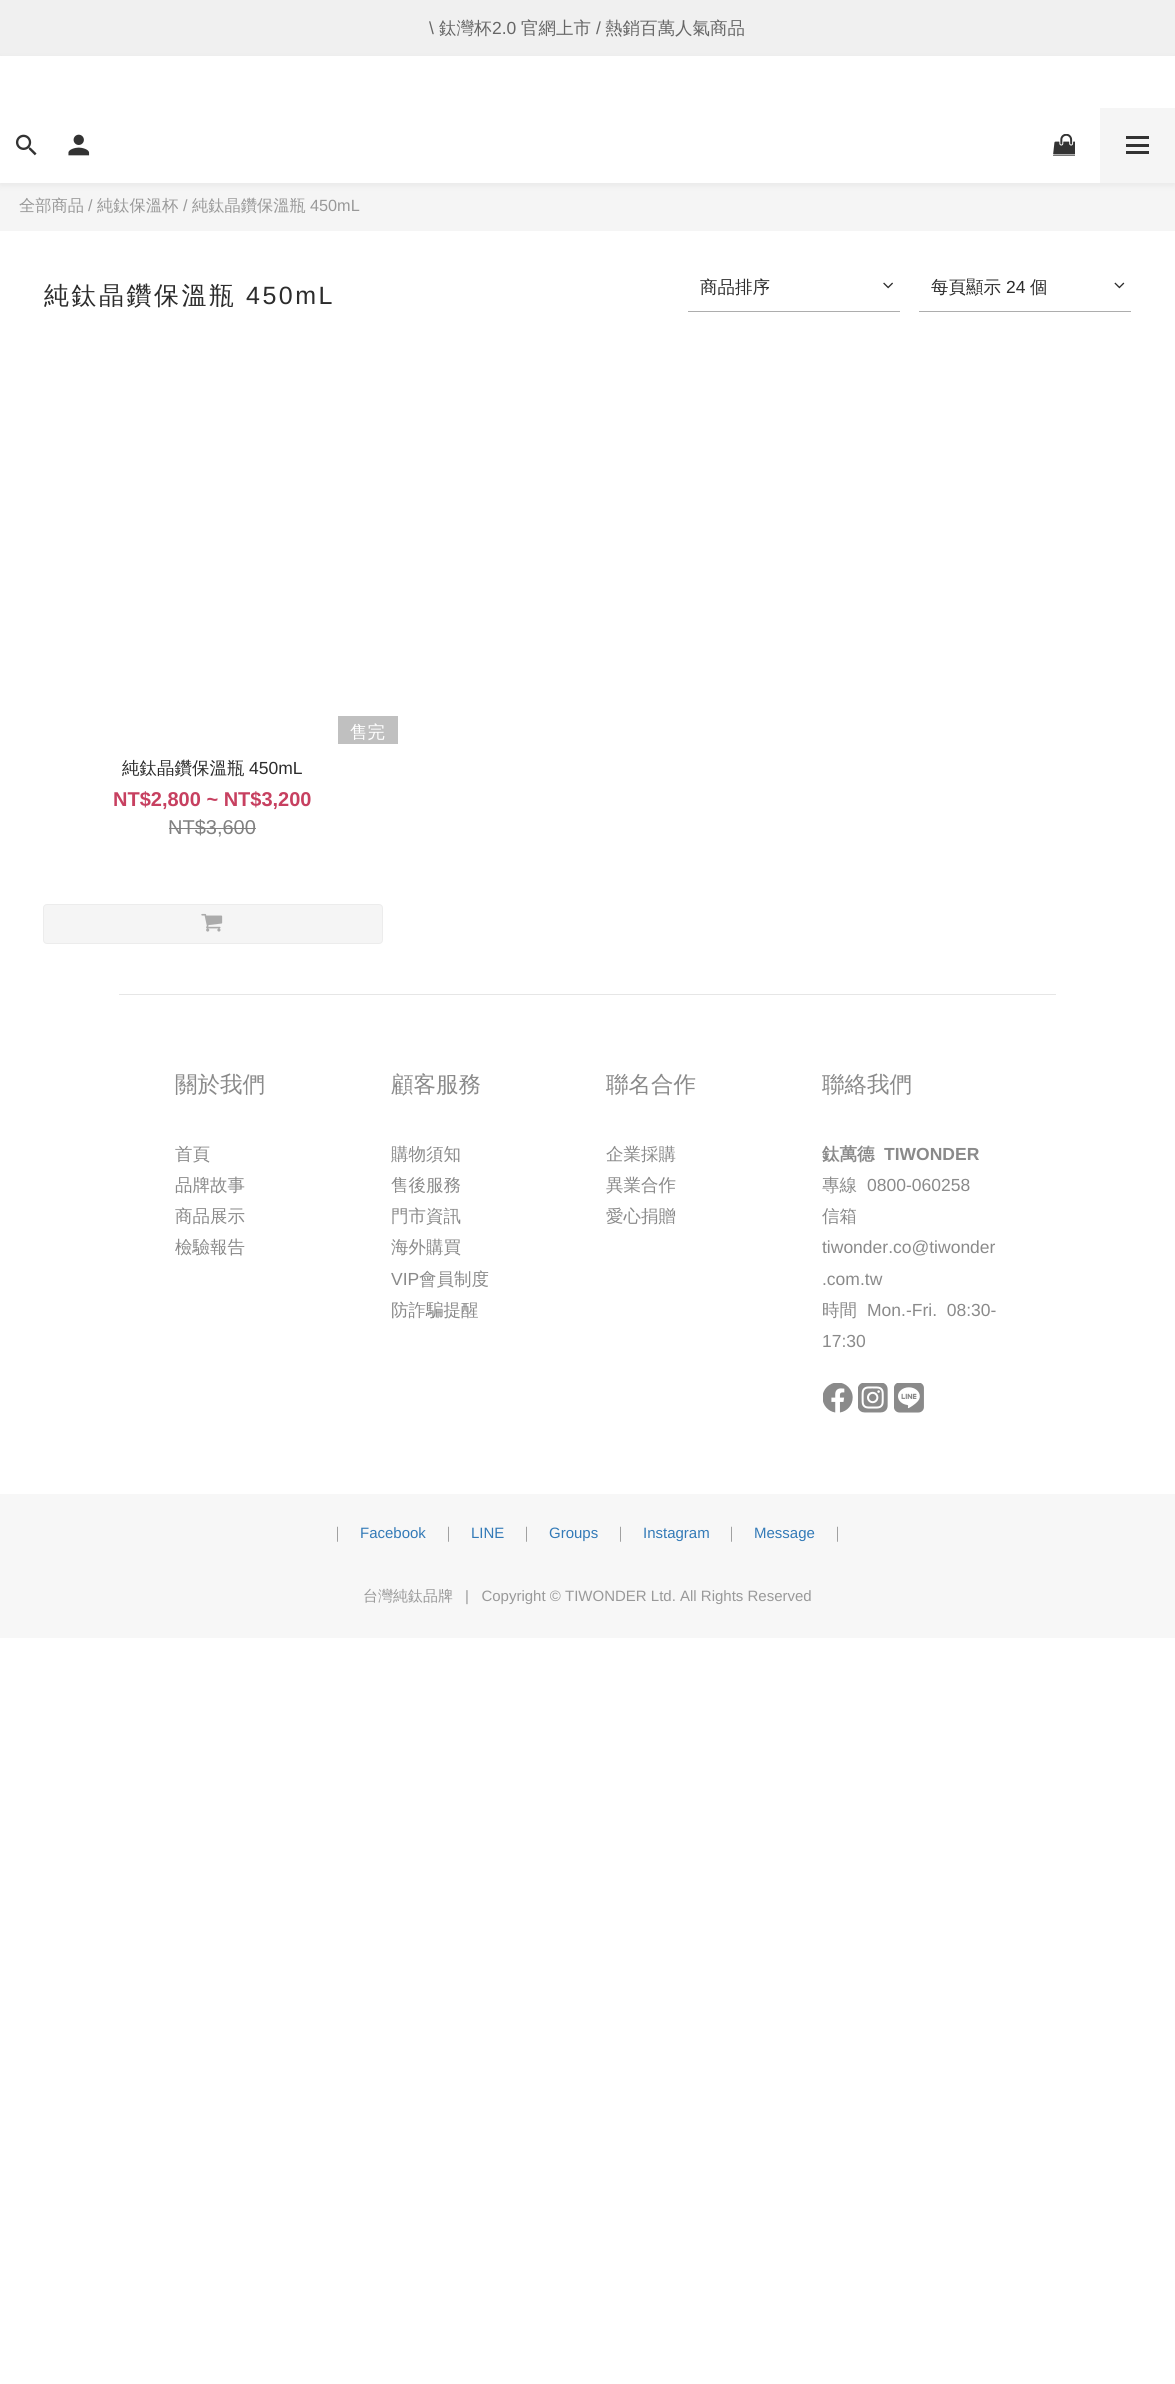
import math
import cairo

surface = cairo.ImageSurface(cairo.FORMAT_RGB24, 1175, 2384)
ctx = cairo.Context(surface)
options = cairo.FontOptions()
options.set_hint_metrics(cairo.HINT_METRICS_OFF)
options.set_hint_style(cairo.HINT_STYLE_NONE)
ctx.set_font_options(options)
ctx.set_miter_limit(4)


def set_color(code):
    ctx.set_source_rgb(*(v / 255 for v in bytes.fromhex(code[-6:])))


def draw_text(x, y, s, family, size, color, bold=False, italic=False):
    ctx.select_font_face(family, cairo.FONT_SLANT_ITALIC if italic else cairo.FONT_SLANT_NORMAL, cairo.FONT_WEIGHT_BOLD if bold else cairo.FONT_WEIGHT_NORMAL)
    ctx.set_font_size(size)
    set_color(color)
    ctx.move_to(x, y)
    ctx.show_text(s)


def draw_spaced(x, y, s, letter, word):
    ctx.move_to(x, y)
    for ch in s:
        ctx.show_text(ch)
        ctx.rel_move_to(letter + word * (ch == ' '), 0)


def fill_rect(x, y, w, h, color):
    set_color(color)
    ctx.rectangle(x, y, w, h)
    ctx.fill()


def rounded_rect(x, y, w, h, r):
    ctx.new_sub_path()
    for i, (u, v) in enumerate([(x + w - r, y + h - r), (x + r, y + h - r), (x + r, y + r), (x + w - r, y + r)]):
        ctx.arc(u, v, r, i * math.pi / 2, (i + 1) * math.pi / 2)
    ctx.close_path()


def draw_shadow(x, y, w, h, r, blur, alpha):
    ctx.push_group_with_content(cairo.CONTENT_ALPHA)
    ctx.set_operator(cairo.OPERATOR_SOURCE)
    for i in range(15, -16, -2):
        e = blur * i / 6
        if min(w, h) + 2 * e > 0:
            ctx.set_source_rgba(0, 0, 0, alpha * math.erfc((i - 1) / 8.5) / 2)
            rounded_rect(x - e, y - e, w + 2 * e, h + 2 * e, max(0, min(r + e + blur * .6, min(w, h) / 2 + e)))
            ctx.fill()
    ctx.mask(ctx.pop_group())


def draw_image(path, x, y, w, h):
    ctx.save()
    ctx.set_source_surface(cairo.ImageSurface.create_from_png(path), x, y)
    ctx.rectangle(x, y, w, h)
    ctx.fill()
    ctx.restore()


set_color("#ffffff")
ctx.paint()
fill_rect(0, 0, 1175, 56, "#f0f0f0")
draw_text(429, 34, "\\", "Liberation Sans", 17.5, "#666666")
draw_text(439, 34, "鈦灣杯", "WenQuanYi Zen Hei Medium", 17.5, "#666666")
draw_text(492, 34, "2.0", "Liberation Sans", 17.5, "#666666")
draw_text(521, 34, "官網上市", "WenQuanYi Zen Hei Medium", 17.5, "#666666")
draw_text(596, 34, "/", "Liberation Sans", 17.5, "#666666")
draw_text(605, 34, "熱銷百萬人氣商品", "WenQuanYi Zen Hei Medium", 17.5, "#666666")
fill_rect(0, 183, 1175, 48, "#f5f5f5")
set_color("#000000")
draw_shadow(0, 59, 1175, 126, 0, 4, 0.06)
fill_rect(0, 56, 1175, 127, "#ffffff")
draw_image("assets/img1.png", 15, 134, 22, 22)
draw_image("assets/img2.png", 68, 134, 22, 22)
draw_image("assets/img3.png", 1053, 134, 22, 22)
fill_rect(1100, 108, 75, 75, "#f5f5f5")
fill_rect(1126, 144, 23, 3, "#333333")
fill_rect(1126, 136, 23, 3, "#333333")
fill_rect(1126, 151, 23, 3, "#333333")
draw_text(19, 211, "全部商品", "WenQuanYi Zen Hei Medium", 16.25, "#999999")
draw_text(88, 211, "/", "Liberation Sans", 16.25, "#999999")
draw_text(97, 211, "純鈦保溫杯", "WenQuanYi Zen Hei Medium", 16.25, "#999999")
draw_text(183, 211, "/", "Liberation Sans", 16.25, "#999999")
draw_text(192, 211, "純鈦晶鑽保溫瓶", "WenQuanYi Zen Hei Medium", 16.25, "#999999")
draw_text(310, 211, "450mL", "Liberation Sans", 16.25, "#999999")
ctx.select_font_face("WenQuanYi Zen Hei Medium")
ctx.set_font_size(25)
set_color("#2c2c2c")
draw_spaced(44, 304, "純鈦晶鑽保溫瓶", 2.5, 0)
ctx.select_font_face("Liberation Sans")
draw_spaced(246, 304, "450mL", 2.5, 0)
draw_text(700, 293, "商品排序", "WenQuanYi Zen Hei Medium", 17.5, "#2c2c2c")
fill_rect(688, 311, 212, 1, "#adadad")
draw_image("assets/img4.png", 883, 282, 10, 7)
draw_text(931, 293, "每頁顯示", "WenQuanYi Zen Hei Medium", 17.5, "#2c2c2c")
draw_text(1006, 293, "24", "Liberation Sans", 17.5, "#2c2c2c")
draw_text(1030, 293, "個", "WenQuanYi Zen Hei Medium", 17.5, "#2c2c2c")
fill_rect(919, 311, 212, 1, "#adadad")
draw_image("assets/img5.png", 1114, 282, 11, 7)
fill_rect(338, 716, 60, 28, "#c0c0c0")
draw_text(350, 738, "售完", "WenQuanYi Zen Hei Medium", 17.5, "#ffffff")
draw_text(122, 774, "純鈦晶鑽保溫瓶", "WenQuanYi Zen Hei Medium", 17.5, "#2c2c2c")
draw_text(249, 774, "450mL", "Liberation Sans", 17.5, "#2c2c2c")
draw_text(113, 806, "NT$2,800 ~ NT$3,200", "Liberation Sans", 20, "#c74060", bold=True)
draw_text(168, 834, "NT$3,600", "Liberation Sans", 20, "#808080")
fill_rect(169, 828, 87, 1, "#808080")
set_color("#f5f5f5")
rounded_rect(43, 904, 340, 40, 4)
ctx.fill()
rounded_rect(43.5, 904.5, 339, 39, 3.5)
ctx.set_source_rgba(0.8, 0.8, 0.8, 0.2)
ctx.set_line_width(1)
ctx.stroke()
draw_image("assets/img6.png", 201, 913, 22, 19)
fill_rect(119, 994, 937, 1, "#e6e6e6")
draw_text(175, 1092, "關於我們", "WenQuanYi Zen Hei Medium", 22.5, "#8a8a8a")
draw_text(175, 1160, "首頁", "WenQuanYi Zen Hei Medium", 17.5, "#8a8a8a")
draw_text(175, 1191, "品牌故事", "WenQuanYi Zen Hei Medium", 17.5, "#8a8a8a")
draw_text(175, 1222, "商品展示", "WenQuanYi Zen Hei Medium", 17.5, "#8a8a8a")
draw_text(175, 1253, "檢驗報告", "WenQuanYi Zen Hei Medium", 17.5, "#8a8a8a")
draw_text(391, 1092, "顧客服務", "WenQuanYi Zen Hei Medium", 22.5, "#8a8a8a")
draw_text(391, 1160, "購物須知", "WenQuanYi Zen Hei Medium", 17.5, "#8a8a8a")
draw_text(391, 1191, "售後服務", "WenQuanYi Zen Hei Medium", 17.5, "#8a8a8a")
draw_text(391, 1222, "門市資訊", "WenQuanYi Zen Hei Medium", 17.5, "#8a8a8a")
draw_text(391, 1253, "海外購買", "WenQuanYi Zen Hei Medium", 17.5, "#8a8a8a")
draw_text(391, 1285, "VIP", "Liberation Sans", 17.5, "#8a8a8a")
draw_text(419, 1285, "會員制度", "WenQuanYi Zen Hei Medium", 17.5, "#8a8a8a")
draw_text(391, 1316, "防詐騙提醒", "WenQuanYi Zen Hei Medium", 17.5, "#8a8a8a")
draw_text(606, 1092, "聯名合作", "WenQuanYi Zen Hei Medium", 22.5, "#8a8a8a")
draw_text(606, 1160, "企業採購", "WenQuanYi Zen Hei Medium", 17.5, "#8a8a8a")
draw_text(606, 1191, "異業合作", "WenQuanYi Zen Hei Medium", 17.5, "#8a8a8a")
draw_text(606, 1222, "愛心捐贈", "WenQuanYi Zen Hei Medium", 17.5, "#8a8a8a")
draw_text(822, 1092, "聯絡我們", "WenQuanYi Zen Hei Medium", 22.5, "#8a8a8a")
draw_text(822, 1160, "鈦萬德", "WenQuanYi Zen Hei", 17.5, "#8a8a8a", bold=True)
draw_text(884, 1160, "TIWONDER", "Liberation Sans", 17.5, "#8a8a8a", bold=True)
draw_text(822, 1191, "專線", "WenQuanYi Zen Hei Medium", 17.5, "#8a8a8a")
draw_text(867, 1191, "0800-060258", "Liberation Sans", 17.5, "#8a8a8a")
draw_text(822, 1222, "信箱", "WenQuanYi Zen Hei Medium", 17.5, "#8a8a8a")
draw_text(822, 1253, "tiwonder.co@tiwonder", "Liberation Sans", 17.5, "#8a8a8a")
draw_text(822, 1285, ".com.tw", "Liberation Sans", 17.5, "#8a8a8a")
draw_text(822, 1316, "時間", "WenQuanYi Zen Hei Medium", 17.5, "#8a8a8a")
draw_text(867, 1316, "Mon.-Fri.  08:30-", "Liberation Sans", 17.5, "#8a8a8a")
draw_text(822, 1347, "17:30", "Liberation Sans", 17.5, "#8a8a8a")
draw_image("assets/img7.png", 823, 1383, 30, 30)
draw_image("assets/img8.png", 858, 1383, 30, 30)
draw_image("assets/img9.png", 894, 1383, 30, 30)
fill_rect(0, 1494, 1175, 144, "#f7f7f7")
draw_text(330, 1538, "｜", "WenQuanYi Zen Hei Medium", 15, "#999999")
draw_text(360, 1538, "Facebook", "Liberation Sans", 15, "#337ab7")
draw_text(441, 1538, "｜", "WenQuanYi Zen Hei Medium", 15, "#999999")
draw_text(471, 1538, "LINE", "Liberation Sans", 15, "#337ab7")
draw_text(519, 1538, "｜", "WenQuanYi Zen Hei Medium", 15, "#999999")
draw_text(549, 1538, "Groups", "Liberation Sans", 15, "#337ab7")
draw_text(613, 1538, "｜", "WenQuanYi Zen Hei Medium", 15, "#999999")
draw_text(643, 1538, "Instagram", "Liberation Sans", 15, "#337ab7")
draw_text(724, 1538, "｜", "WenQuanYi Zen Hei Medium", 15, "#999999")
draw_text(754, 1538, "Message", "Liberation Sans", 15, "#337ab7")
draw_text(830, 1538, "｜", "WenQuanYi Zen Hei Medium", 15, "#999999")
draw_text(363, 1601, "台灣純鈦品牌", "WenQuanYi Zen Hei Medium", 15, "#999999")
draw_text(465, 1601, "|   Copyright © TIWONDER Ltd. All Rights Reserved", "Liberation Sans", 15, "#999999")
surface.write_to_png("output.png")
